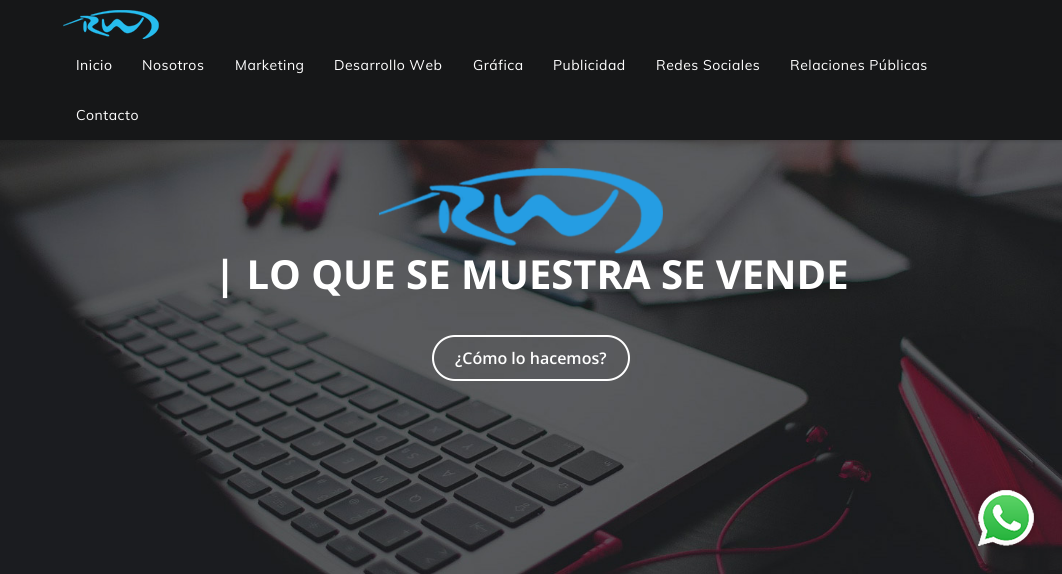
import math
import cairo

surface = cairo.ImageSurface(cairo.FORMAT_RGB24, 1062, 574)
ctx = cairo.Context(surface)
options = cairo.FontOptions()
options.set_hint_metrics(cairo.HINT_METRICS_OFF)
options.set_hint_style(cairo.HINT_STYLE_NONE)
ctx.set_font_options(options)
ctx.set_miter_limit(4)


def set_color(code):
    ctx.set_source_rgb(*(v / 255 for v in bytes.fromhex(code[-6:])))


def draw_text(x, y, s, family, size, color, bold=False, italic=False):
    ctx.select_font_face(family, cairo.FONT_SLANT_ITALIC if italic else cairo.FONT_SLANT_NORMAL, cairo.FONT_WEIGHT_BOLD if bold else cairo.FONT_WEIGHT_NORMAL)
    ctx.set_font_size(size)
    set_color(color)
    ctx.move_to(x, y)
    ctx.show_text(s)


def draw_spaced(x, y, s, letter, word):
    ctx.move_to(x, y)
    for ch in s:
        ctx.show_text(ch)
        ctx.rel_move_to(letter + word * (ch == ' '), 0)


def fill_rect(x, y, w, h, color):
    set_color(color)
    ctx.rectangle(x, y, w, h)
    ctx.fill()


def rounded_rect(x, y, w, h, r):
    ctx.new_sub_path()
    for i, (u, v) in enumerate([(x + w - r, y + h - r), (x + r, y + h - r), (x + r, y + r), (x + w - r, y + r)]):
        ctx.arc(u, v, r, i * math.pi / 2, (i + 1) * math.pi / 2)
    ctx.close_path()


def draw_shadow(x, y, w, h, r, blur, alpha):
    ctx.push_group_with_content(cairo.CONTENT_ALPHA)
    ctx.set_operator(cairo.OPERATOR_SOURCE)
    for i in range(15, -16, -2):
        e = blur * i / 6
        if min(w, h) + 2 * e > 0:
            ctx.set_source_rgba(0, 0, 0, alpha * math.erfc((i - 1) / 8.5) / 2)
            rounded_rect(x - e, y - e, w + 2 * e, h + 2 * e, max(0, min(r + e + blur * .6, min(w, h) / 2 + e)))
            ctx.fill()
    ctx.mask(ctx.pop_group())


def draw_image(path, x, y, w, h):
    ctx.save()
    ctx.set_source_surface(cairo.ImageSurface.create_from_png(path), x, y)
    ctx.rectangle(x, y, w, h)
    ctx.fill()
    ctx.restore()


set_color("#ffffff")
ctx.paint()
draw_image("assets/img2.png", 0, 140, 1062, 434)
set_color("#000000")
draw_shadow(0, 1, 1062, 140, 0, 2, 0.2)
fill_rect(0, 0, 1062, 140, "#161718")
draw_image("assets/img1.png", 63, 10, 96, 29)
ctx.select_font_face("Muli")
ctx.set_font_size(14)
set_color("#ffffff")
draw_spaced(76, 70, "Inicio", 0.5, 0)
draw_spaced(142, 70, "Nosotros", 0.5, 0)
draw_spaced(235, 70, "Marketing", 0.5, 0)
draw_spaced(334, 70, "Desarrollo Web", 0.5, 0)
draw_spaced(473, 70, "Gráfica", 0.5, 0)
draw_spaced(553, 70, "Publicidad", 0.5, 0)
draw_spaced(656, 70, "Redes Sociales", 0.5, 0)
draw_spaced(790, 70, "Relaciones Públicas", 0.5, 0)
draw_spaced(76, 120, "Contacto", 0.5, 0)
draw_image("assets/img3.png", 379, 168, 284, 86)
draw_text(214, 289, "| LO QUE SE MUESTRA SE VENDE", "Open Sans", 40, "#ffffff", bold=True)
rounded_rect(433, 336, 196, 44, 22)
ctx.stroke()
draw_text(455, 364, "¿Cómo lo hacemos?", "Open Sans SemiBold", 16, "#ffffff")
draw_image("assets/img4.png", 975, 487, 61, 59)
surface.write_to_png("output.png")
